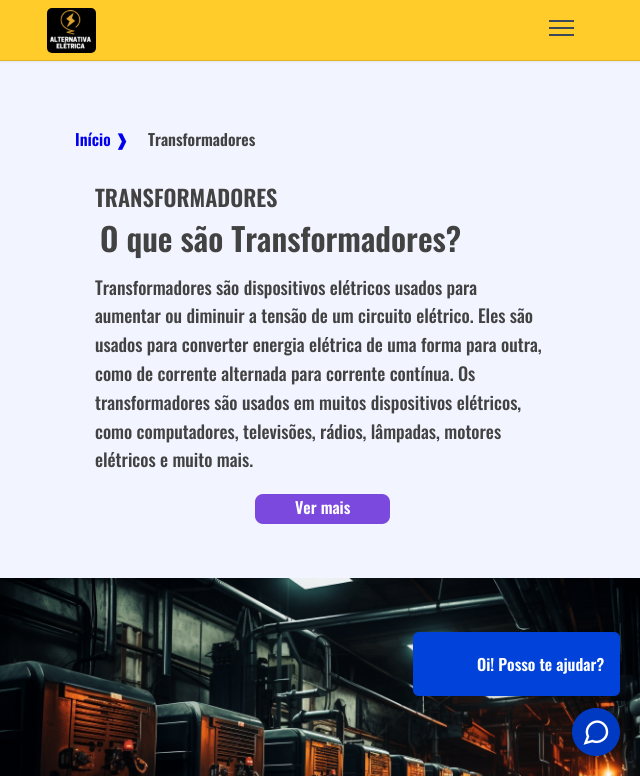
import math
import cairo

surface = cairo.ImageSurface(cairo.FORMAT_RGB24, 640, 776)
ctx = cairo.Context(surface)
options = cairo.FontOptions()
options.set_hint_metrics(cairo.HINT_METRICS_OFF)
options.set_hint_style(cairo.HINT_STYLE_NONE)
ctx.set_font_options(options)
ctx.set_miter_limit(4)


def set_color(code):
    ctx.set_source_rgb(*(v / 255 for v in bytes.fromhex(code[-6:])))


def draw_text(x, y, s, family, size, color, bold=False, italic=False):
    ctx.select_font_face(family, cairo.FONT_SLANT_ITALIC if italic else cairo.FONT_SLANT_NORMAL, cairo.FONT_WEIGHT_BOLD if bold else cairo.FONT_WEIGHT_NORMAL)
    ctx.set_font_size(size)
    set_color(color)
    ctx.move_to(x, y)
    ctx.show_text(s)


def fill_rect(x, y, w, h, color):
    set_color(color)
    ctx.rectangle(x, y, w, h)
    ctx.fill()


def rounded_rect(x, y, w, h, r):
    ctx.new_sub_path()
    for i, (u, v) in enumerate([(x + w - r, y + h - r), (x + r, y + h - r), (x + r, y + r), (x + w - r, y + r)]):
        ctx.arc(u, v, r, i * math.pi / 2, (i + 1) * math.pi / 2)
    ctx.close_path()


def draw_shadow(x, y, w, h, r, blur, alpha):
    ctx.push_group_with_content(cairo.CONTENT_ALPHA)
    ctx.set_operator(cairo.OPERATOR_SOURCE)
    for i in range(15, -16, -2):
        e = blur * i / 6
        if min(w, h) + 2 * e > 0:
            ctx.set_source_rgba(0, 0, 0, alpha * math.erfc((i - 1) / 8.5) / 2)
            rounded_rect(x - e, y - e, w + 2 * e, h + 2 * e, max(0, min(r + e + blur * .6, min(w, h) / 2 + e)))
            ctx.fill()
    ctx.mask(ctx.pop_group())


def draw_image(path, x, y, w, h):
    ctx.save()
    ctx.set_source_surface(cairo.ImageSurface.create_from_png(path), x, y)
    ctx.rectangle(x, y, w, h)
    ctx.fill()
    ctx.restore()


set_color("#f2f4ff")
ctx.paint()
set_color("#3c4858")
draw_shadow(0, 0, 640, 61, 0, 1.5, 0.15)
fill_rect(0, 0, 640, 60, "#ffcc2a")
fill_rect(0, 60, 640, 1, "#dfb325")
draw_image("assets/img1.png", 47, 8, 49, 45)
fill_rect(549, 20, 25, 2, "#3c4858")
fill_rect(549, 27, 25, 2, "#3c4858")
fill_rect(549, 34, 25, 2, "#3c4858")
draw_text(75, 146, "Início", "Oswald SemiBold", 16, "#0000ee")
draw_text(115, 146, "❱", "DejaVu Sans", 16, "#0000ee", bold=True)
draw_text(148, 146, "Transformadores", "Oswald SemiBold", 16, "#424242")
draw_text(95, 207, "TRANSFORMADORES", "Oswald SemiBold", 22.5, "#424242")
draw_text(100, 252, "O que são Transformadores?", "Oswald SemiBold", 32, "#424242")
draw_text(95, 295, "Transformadores são dispositivos elétricos usados para", "Oswald Medium", 18, "#424242")
draw_text(95, 323, "aumentar ou diminuir a tensão de um circuito elétrico. Eles são", "Oswald Medium", 18, "#424242")
draw_text(95, 352, "usados para converter energia elétrica de uma forma para outra,", "Oswald Medium", 18, "#424242")
draw_text(95, 381, "como de corrente alternada para corrente contínua. Os", "Oswald Medium", 18, "#424242")
draw_text(95, 410, "transformadores são usados em muitos dispositivos elétricos,", "Oswald Medium", 18, "#424242")
draw_text(95, 439, "como computadores, televisões, rádios, lâmpadas, motores", "Oswald Medium", 18, "#424242")
draw_text(95, 467, "elétricos e muito mais.", "Oswald Medium", 18, "#424242")
set_color("#7b49dd")
rounded_rect(255, 494, 135, 30, 8)
ctx.fill()
draw_text(295, 514, "Ver mais", "Oswald SemiBold", 16, "#ffffff")
draw_image("assets/img2.png", 0, 578, 640, 198)
set_color("#000000")
draw_shadow(415, 636, 203, 60, 4, 2, 0.1)
draw_shadow(414, 637, 205, 62, 5, 3, 0.1)
set_color("#0042da")
rounded_rect(413, 632, 207, 64, 6)
ctx.fill()
draw_text(477, 671, "Oi! Posso te ajudar?", "Oswald SemiBold", 16, "#ffffff")
set_color("#000000")
draw_shadow(574, 712, 44, 44, 22, 2, 0.1)
draw_shadow(573, 713, 46, 46, 23, 3, 0.1)
set_color("#003ac2")
ctx.arc(596, 732, 24, 0, 2 * math.pi)
ctx.fill()
ctx.new_path()
ctx.move_to(607, 732)
ctx.curve_to(607, 739, 599, 744, 592.5, 741)
ctx.line_to(585.5, 743)
ctx.line_to(588, 736.5)
ctx.curve_to(583, 726.5, 596, 716.5, 604, 724.5)
ctx.curve_to(606, 726.5, 607, 729, 607, 732)
ctx.close_path()
set_color("#ffffff")
ctx.set_line_width(2.4)
ctx.stroke()
surface.write_to_png("output.png")
